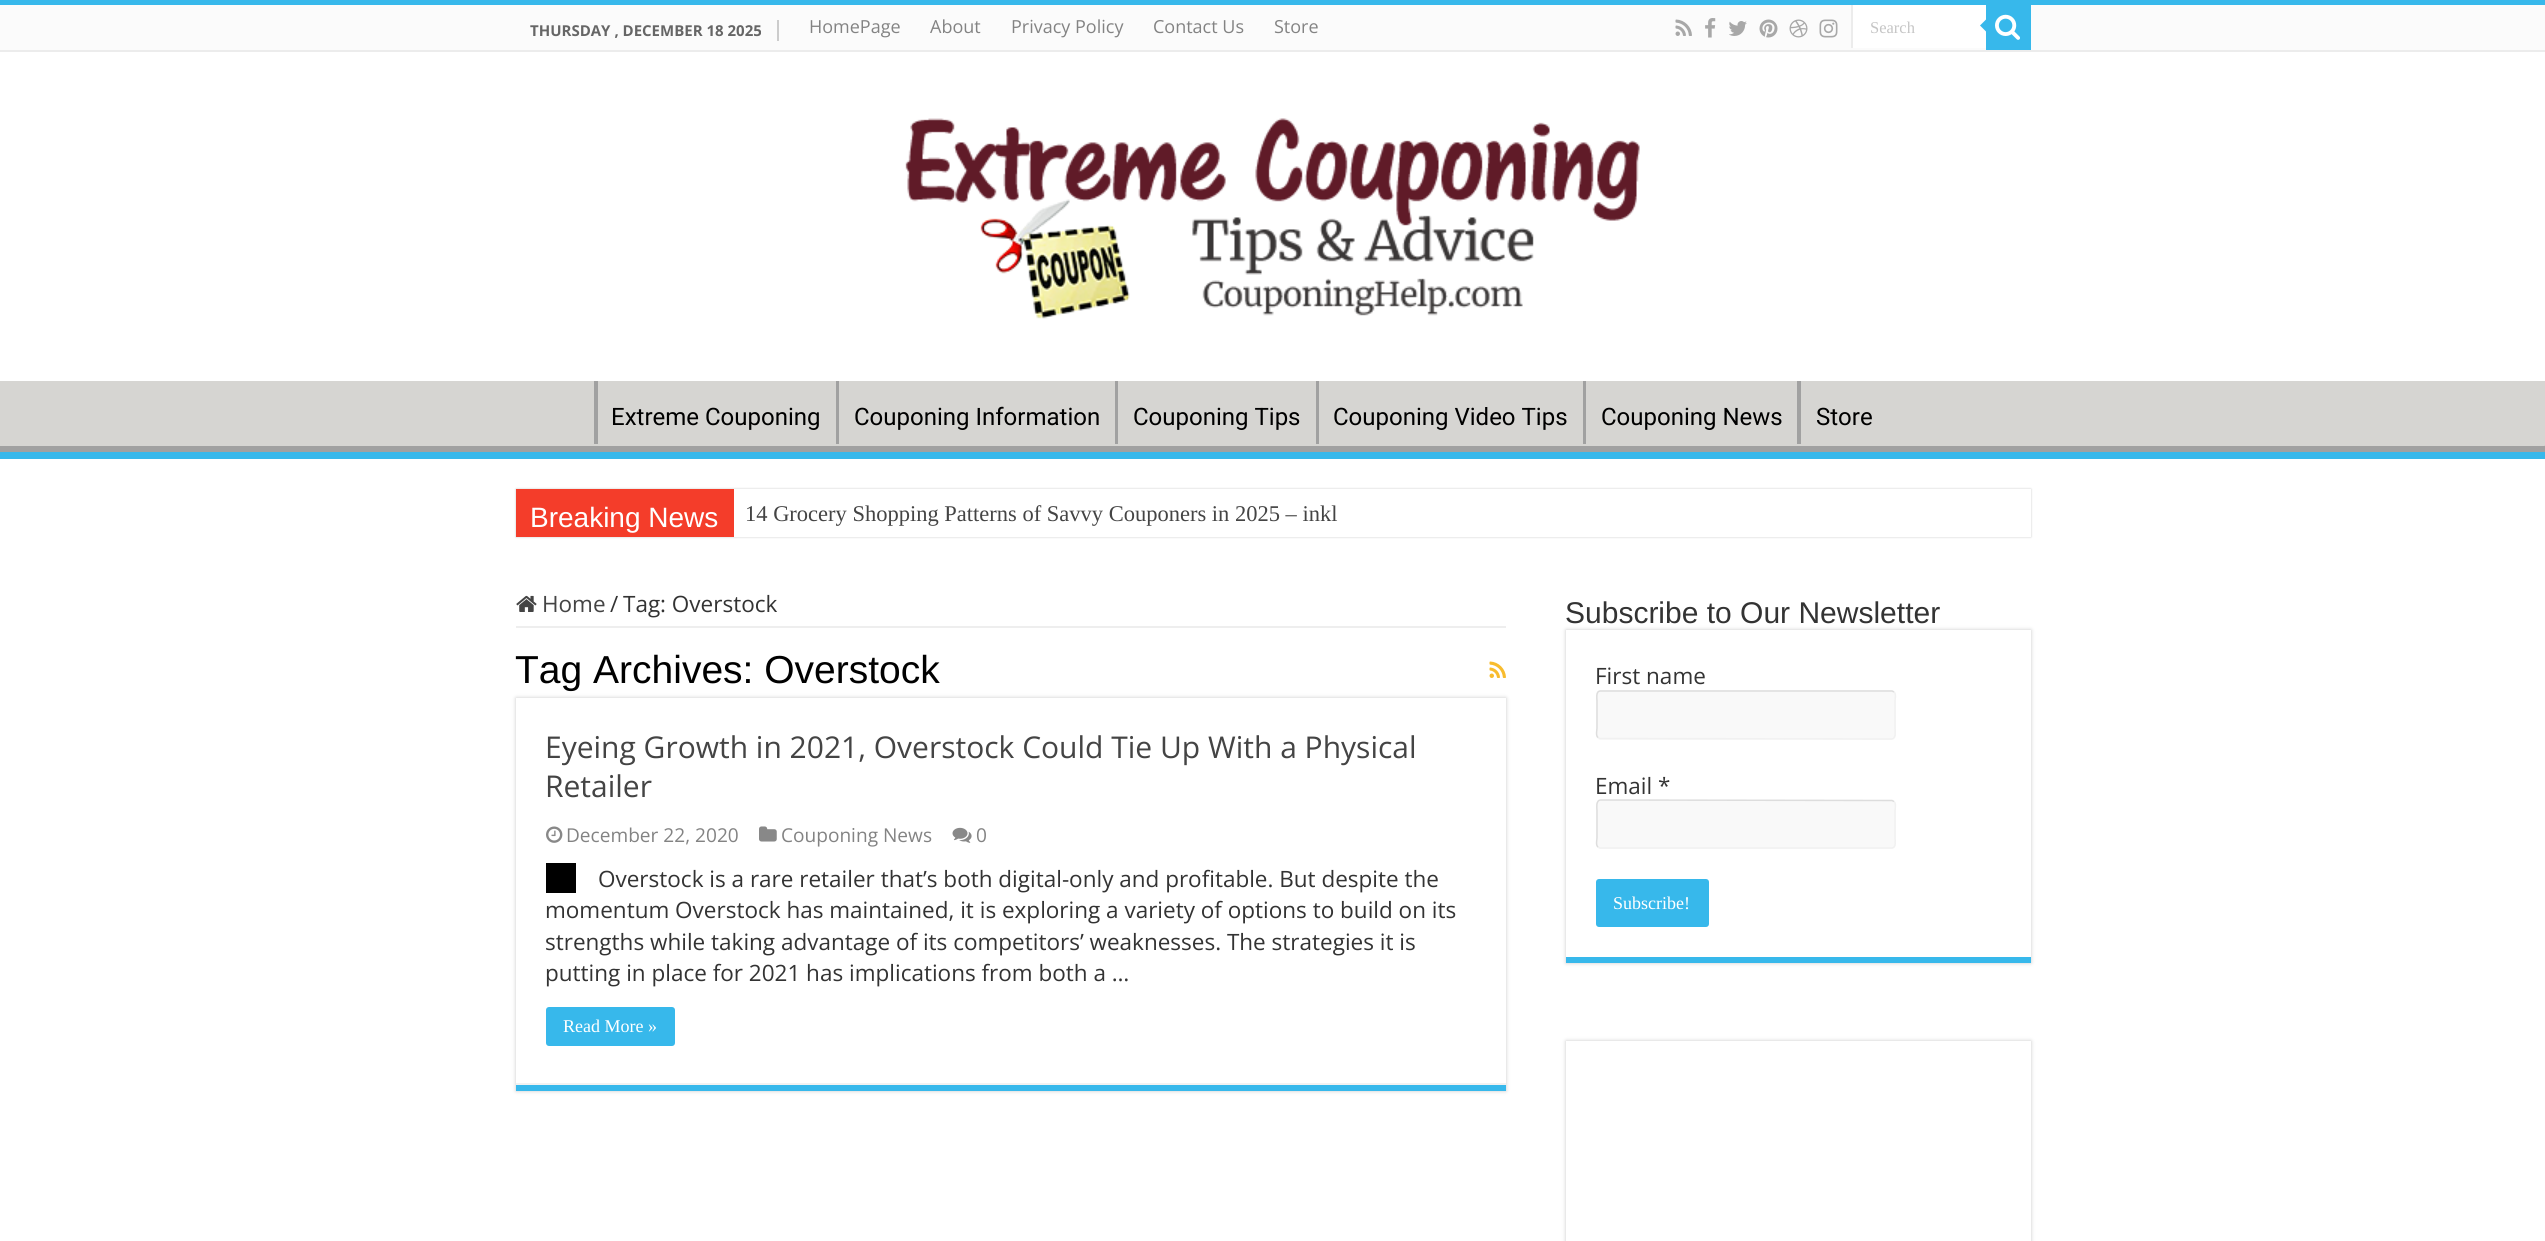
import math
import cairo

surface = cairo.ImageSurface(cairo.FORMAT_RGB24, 2545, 1241)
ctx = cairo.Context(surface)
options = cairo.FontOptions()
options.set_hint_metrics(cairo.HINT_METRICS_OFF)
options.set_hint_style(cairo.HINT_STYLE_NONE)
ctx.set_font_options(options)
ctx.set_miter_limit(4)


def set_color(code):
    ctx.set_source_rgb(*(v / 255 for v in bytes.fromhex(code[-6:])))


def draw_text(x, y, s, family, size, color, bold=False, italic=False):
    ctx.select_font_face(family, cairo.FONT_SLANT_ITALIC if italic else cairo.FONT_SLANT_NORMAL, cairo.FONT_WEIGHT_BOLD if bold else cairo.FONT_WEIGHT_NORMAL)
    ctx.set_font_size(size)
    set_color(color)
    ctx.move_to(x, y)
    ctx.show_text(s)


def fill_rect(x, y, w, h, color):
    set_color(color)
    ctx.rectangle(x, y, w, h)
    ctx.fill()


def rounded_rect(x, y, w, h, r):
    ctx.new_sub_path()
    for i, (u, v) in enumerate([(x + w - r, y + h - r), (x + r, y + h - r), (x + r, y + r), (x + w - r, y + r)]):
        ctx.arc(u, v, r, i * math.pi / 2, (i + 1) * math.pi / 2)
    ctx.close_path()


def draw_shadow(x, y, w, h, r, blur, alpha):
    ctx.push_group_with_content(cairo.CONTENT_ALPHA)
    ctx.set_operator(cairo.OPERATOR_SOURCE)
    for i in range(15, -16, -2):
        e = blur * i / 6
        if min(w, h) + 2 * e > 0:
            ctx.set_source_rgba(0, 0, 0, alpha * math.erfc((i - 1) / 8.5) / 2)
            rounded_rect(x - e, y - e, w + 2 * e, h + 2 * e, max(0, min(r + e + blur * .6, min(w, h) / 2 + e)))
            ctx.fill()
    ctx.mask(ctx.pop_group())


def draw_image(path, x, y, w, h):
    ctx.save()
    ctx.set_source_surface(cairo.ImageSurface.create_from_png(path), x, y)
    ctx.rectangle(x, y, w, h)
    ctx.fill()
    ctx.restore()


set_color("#ffffff")
ctx.paint()
fill_rect(0, 0, 2545, 5, "#37b8eb")
fill_rect(0, 5, 2545, 45, "#fbfbfb")
fill_rect(0, 50, 2545, 2, "#ececec")
fill_rect(777, 20, 2, 21, "#cccccc")
draw_text(530, 36, "THURSDAY , DECEMBER 18 2025", "Open Sans", 15, "#666666", bold=True)
draw_text(809, 33, "HomePage", "Open Sans", 18, "#838383")
draw_text(930, 33, "About", "Open Sans", 18, "#838383")
draw_text(1011, 33, "Privacy Policy", "Open Sans", 18, "#838383")
draw_text(1153, 33, "Contact Us", "Open Sans", 18, "#838383")
draw_text(1274, 33, "Store", "Open Sans", 18, "#838383")
draw_image("assets/img1.png", 1675, 19, 17, 17)
draw_image("assets/img2.png", 1705, 18, 11, 20)
draw_image("assets/img3.png", 1729, 21, 18, 15)
draw_image("assets/img4.png", 1759, 19, 19, 19)
draw_image("assets/img5.png", 1789, 19, 19, 19)
draw_image("assets/img6.png", 1819, 19, 19, 19)
fill_rect(1853, 5, 133, 43, "#ffffff")
fill_rect(1851, 5, 2, 43, "#ececec")
ctx.save()
ctx.rectangle(1871, 18, 97, 18)
ctx.clip()
draw_text(1870, 33, "Search", "Liberation Serif", 16.5, "#c5c5c5")
ctx.restore()
fill_rect(1986, 5, 45, 45, "#37b8eb")
draw_image("assets/img7.png", 1995, 14, 25, 26)
ctx.new_path()
ctx.move_to(1986, 19.5)
ctx.line_to(1986, 31.5)
ctx.line_to(1980, 25.5)
ctx.close_path()
ctx.fill()
draw_image("assets/img8.png", 905, 118, 735, 201)
fill_rect(0, 381, 2545, 65, "#d6d5d2")
ctx.save()
ctx.rectangle(0, 381, 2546, 71)
ctx.clip()
set_color("#a1a1a1")
ctx.set_fill_rule(cairo.FILL_RULE_EVEN_ODD)
ctx.new_path()
ctx.move_to(-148, 232)
ctx.line_to(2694, 232)
ctx.line_to(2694, 600)
ctx.line_to(-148, 600)
ctx.close_path()
ctx.move_to(-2, 372)
ctx.line_to(2544, 372)
ctx.curve_to(2545, 372, 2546, 373, 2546, 374)
ctx.line_to(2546, 444)
ctx.curve_to(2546, 445, 2545, 446, 2544, 446)
ctx.line_to(-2, 446)
ctx.curve_to(-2, 446, -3, 445, -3, 444)
ctx.line_to(-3, 374)
ctx.curve_to(-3, 373, -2, 372, -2, 372)
ctx.close_path()
ctx.fill()
ctx.restore()
fill_rect(0, 452, 2545, 7, "#37b8eb")
fill_rect(594, 381, 4, 63, "#a1a1a1")
draw_text(611, 425, "Extreme Couponing", "Roboto", 24, "#000000")
fill_rect(836, 381, 3, 63, "#a1a1a1")
draw_text(854, 425, "Couponing Information", "Roboto", 24, "#000000")
fill_rect(1115, 381, 3, 63, "#a1a1a1")
draw_text(1133, 425, "Couponing Tips", "Roboto", 24, "#000000")
fill_rect(1316, 381, 3, 63, "#a1a1a1")
draw_text(1333, 425, "Couponing Video Tips", "Roboto", 24, "#000000")
fill_rect(1583, 381, 3, 63, "#a1a1a1")
draw_text(1601, 425, "Couponing News", "Roboto", 24, "#000000")
fill_rect(1797, 381, 4, 63, "#a1a1a1")
draw_text(1816, 425, "Store", "Roboto", 24, "#000000")
ctx.save()
ctx.set_fill_rule(cairo.FILL_RULE_EVEN_ODD)
ctx.new_path()
ctx.move_to(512, 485)
ctx.line_to(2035, 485)
ctx.line_to(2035, 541)
ctx.line_to(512, 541)
ctx.close_path()
ctx.move_to(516, 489)
ctx.line_to(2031, 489)
ctx.line_to(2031, 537)
ctx.line_to(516, 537)
ctx.close_path()
ctx.clip()
set_color("#cacaca")
draw_shadow(516, 489, 1515, 48, 0, 1, 1)
ctx.restore()
fill_rect(516, 489, 218, 48, "#f43d2a")
draw_text(530, 527, "Breaking News", "Liberation Sans", 28, "#ffffff")
draw_text(745, 521, "14 Grocery Shopping Patterns of Savvy Couponers in 2025 – inkl", "Liberation Serif", 22.5, "#444444")
fill_rect(516, 626, 990, 2, "#eeeeee")
draw_image("assets/img9.png", 516, 595, 21, 17)
draw_text(542, 612, "Home", "Open Sans", 22.5, "#444444")
draw_text(610, 612, "/", "Open Sans", 22.5, "#333333")
draw_text(623, 612, "Tag: Overstock", "Open Sans", 22.5, "#333333")
set_color("#cacaca")
draw_shadow(516, 698, 990, 393, 0, 2, 1)
draw_text(515, 683, "Tag Archives: Overstock", "Liberation Sans", 39, "#000000")
draw_image("assets/img10.png", 1489, 661, 17, 17)
fill_rect(516, 698, 990, 385, "#ffffff")
fill_rect(516, 1085, 990, 6, "#37b8eb")
fill_rect(516, 1083, 990, 2, "#f2f2f2")
draw_text(545, 758, "Eyeing Growth in 2021, Overstock Could Tie Up With a Physical", "Open Sans", 30, "#444444")
draw_text(545, 797, "Retailer", "Open Sans", 30, "#444444")
draw_image("assets/img11.png", 546, 826, 17, 17)
draw_text(566, 842, "December 22, 2020", "Open Sans", 19.1, "#838383")
draw_image("assets/img12.png", 759, 826, 18, 16)
draw_text(781, 842, "Couponing News", "Open Sans", 19.1, "#838383")
draw_image("assets/img13.png", 952, 827, 20, 16)
draw_text(976, 842, "0", "Open Sans", 19.1, "#838383")
fill_rect(546, 863, 30, 30, "#000000")
draw_text(598, 887, "Overstock is a rare retailer that’s both digital-only and profitable. But despite the", "Open Sans", 22.5, "#333333")
draw_text(545, 918, "momentum Overstock has maintained, it is exploring a variety of options to build on its", "Open Sans", 22.5, "#333333")
draw_text(545, 950, "strengths while taking advantage of its competitors’ weaknesses. The strategies it is", "Open Sans", 22.5, "#333333")
draw_text(545, 981, "putting in place for 2021 has implications from both a …", "Open Sans", 22.5, "#333333")
set_color("#37b8eb")
rounded_rect(546, 1007, 129, 39, 3)
ctx.fill()
draw_text(563, 1032, "Read More »", "Liberation Serif", 18, "#ffffff")
ctx.save()
ctx.set_fill_rule(cairo.FILL_RULE_EVEN_ODD)
ctx.new_path()
ctx.move_to(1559, 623)
ctx.line_to(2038, 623)
ctx.line_to(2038, 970)
ctx.line_to(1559, 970)
ctx.close_path()
ctx.move_to(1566, 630)
ctx.line_to(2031, 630)
ctx.line_to(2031, 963)
ctx.line_to(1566, 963)
ctx.close_path()
ctx.clip()
set_color("#cacaca")
draw_shadow(1566, 630, 465, 333, 0, 2, 1)
ctx.restore()
draw_text(1565, 623, "Subscribe to Our Newsletter", "Liberation Sans", 30, "#333333")
fill_rect(1566, 957, 465, 6, "#37b8eb")
draw_text(1595, 684, "First name", "Open Sans", 22.5, "#333333")
set_color("#f9f9f9")
rounded_rect(1596, 690, 300, 50, 5)
ctx.fill()
ctx.new_path()
ctx.move_to(1894, 692)
ctx.curve_to(1896.5, 694, 1895, 699.5, 1895, 701)
ctx.line_to(1895, 728)
ctx.curve_to(1895, 731, 1896.5, 738.5, 1891.5, 739)
ctx.line_to(1600, 738.5)
ctx.line_to(1598, 737.5)
set_color("#f1f1f1")
ctx.set_line_width(1.5)
ctx.stroke()
ctx.new_path()
ctx.move_to(1598, 737.5)
ctx.curve_to(1595.5, 735.5, 1597, 730, 1597, 728)
ctx.line_to(1597, 701)
ctx.curve_to(1597, 698.5, 1595.5, 691, 1600.5, 691)
ctx.line_to(1892, 691)
ctx.line_to(1894, 692)
set_color("#dddddd")
ctx.stroke()
draw_text(1595, 794, "Email *", "Open Sans", 22.5, "#333333")
set_color("#f9f9f9")
rounded_rect(1596, 800, 300, 49, 5)
ctx.fill()
ctx.new_path()
ctx.move_to(1894, 801.5)
ctx.curve_to(1896.5, 803.5, 1895, 809, 1895, 811)
ctx.line_to(1895, 838)
ctx.curve_to(1895, 840.5, 1896.5, 848, 1891.5, 848)
ctx.line_to(1600, 848)
ctx.line_to(1598, 847)
set_color("#f1f1f1")
ctx.stroke()
ctx.new_path()
ctx.move_to(1598, 847)
ctx.curve_to(1595.5, 845, 1597, 839.5, 1597, 838)
ctx.line_to(1597, 811)
ctx.curve_to(1597, 808, 1595.5, 800.5, 1600.5, 800)
ctx.line_to(1892, 800.5)
ctx.line_to(1894, 801.5)
set_color("#dddddd")
ctx.stroke()
set_color("#37b8eb")
rounded_rect(1596, 879, 113, 48, 3)
ctx.fill()
draw_text(1613, 909, "Subscribe!", "Liberation Serif", 18, "#ffffff")
ctx.save()
ctx.set_fill_rule(cairo.FILL_RULE_EVEN_ODD)
ctx.new_path()
ctx.move_to(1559, 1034)
ctx.line_to(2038, 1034)
ctx.line_to(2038, 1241)
ctx.line_to(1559, 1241)
ctx.close_path()
ctx.move_to(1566, 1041)
ctx.line_to(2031, 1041)
ctx.line_to(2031, 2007)
ctx.line_to(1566, 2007)
ctx.close_path()
ctx.clip()
set_color("#cacaca")
draw_shadow(1566, 1041, 465, 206, 0, 2, 1)
ctx.restore()
surface.write_to_png("output.png")
